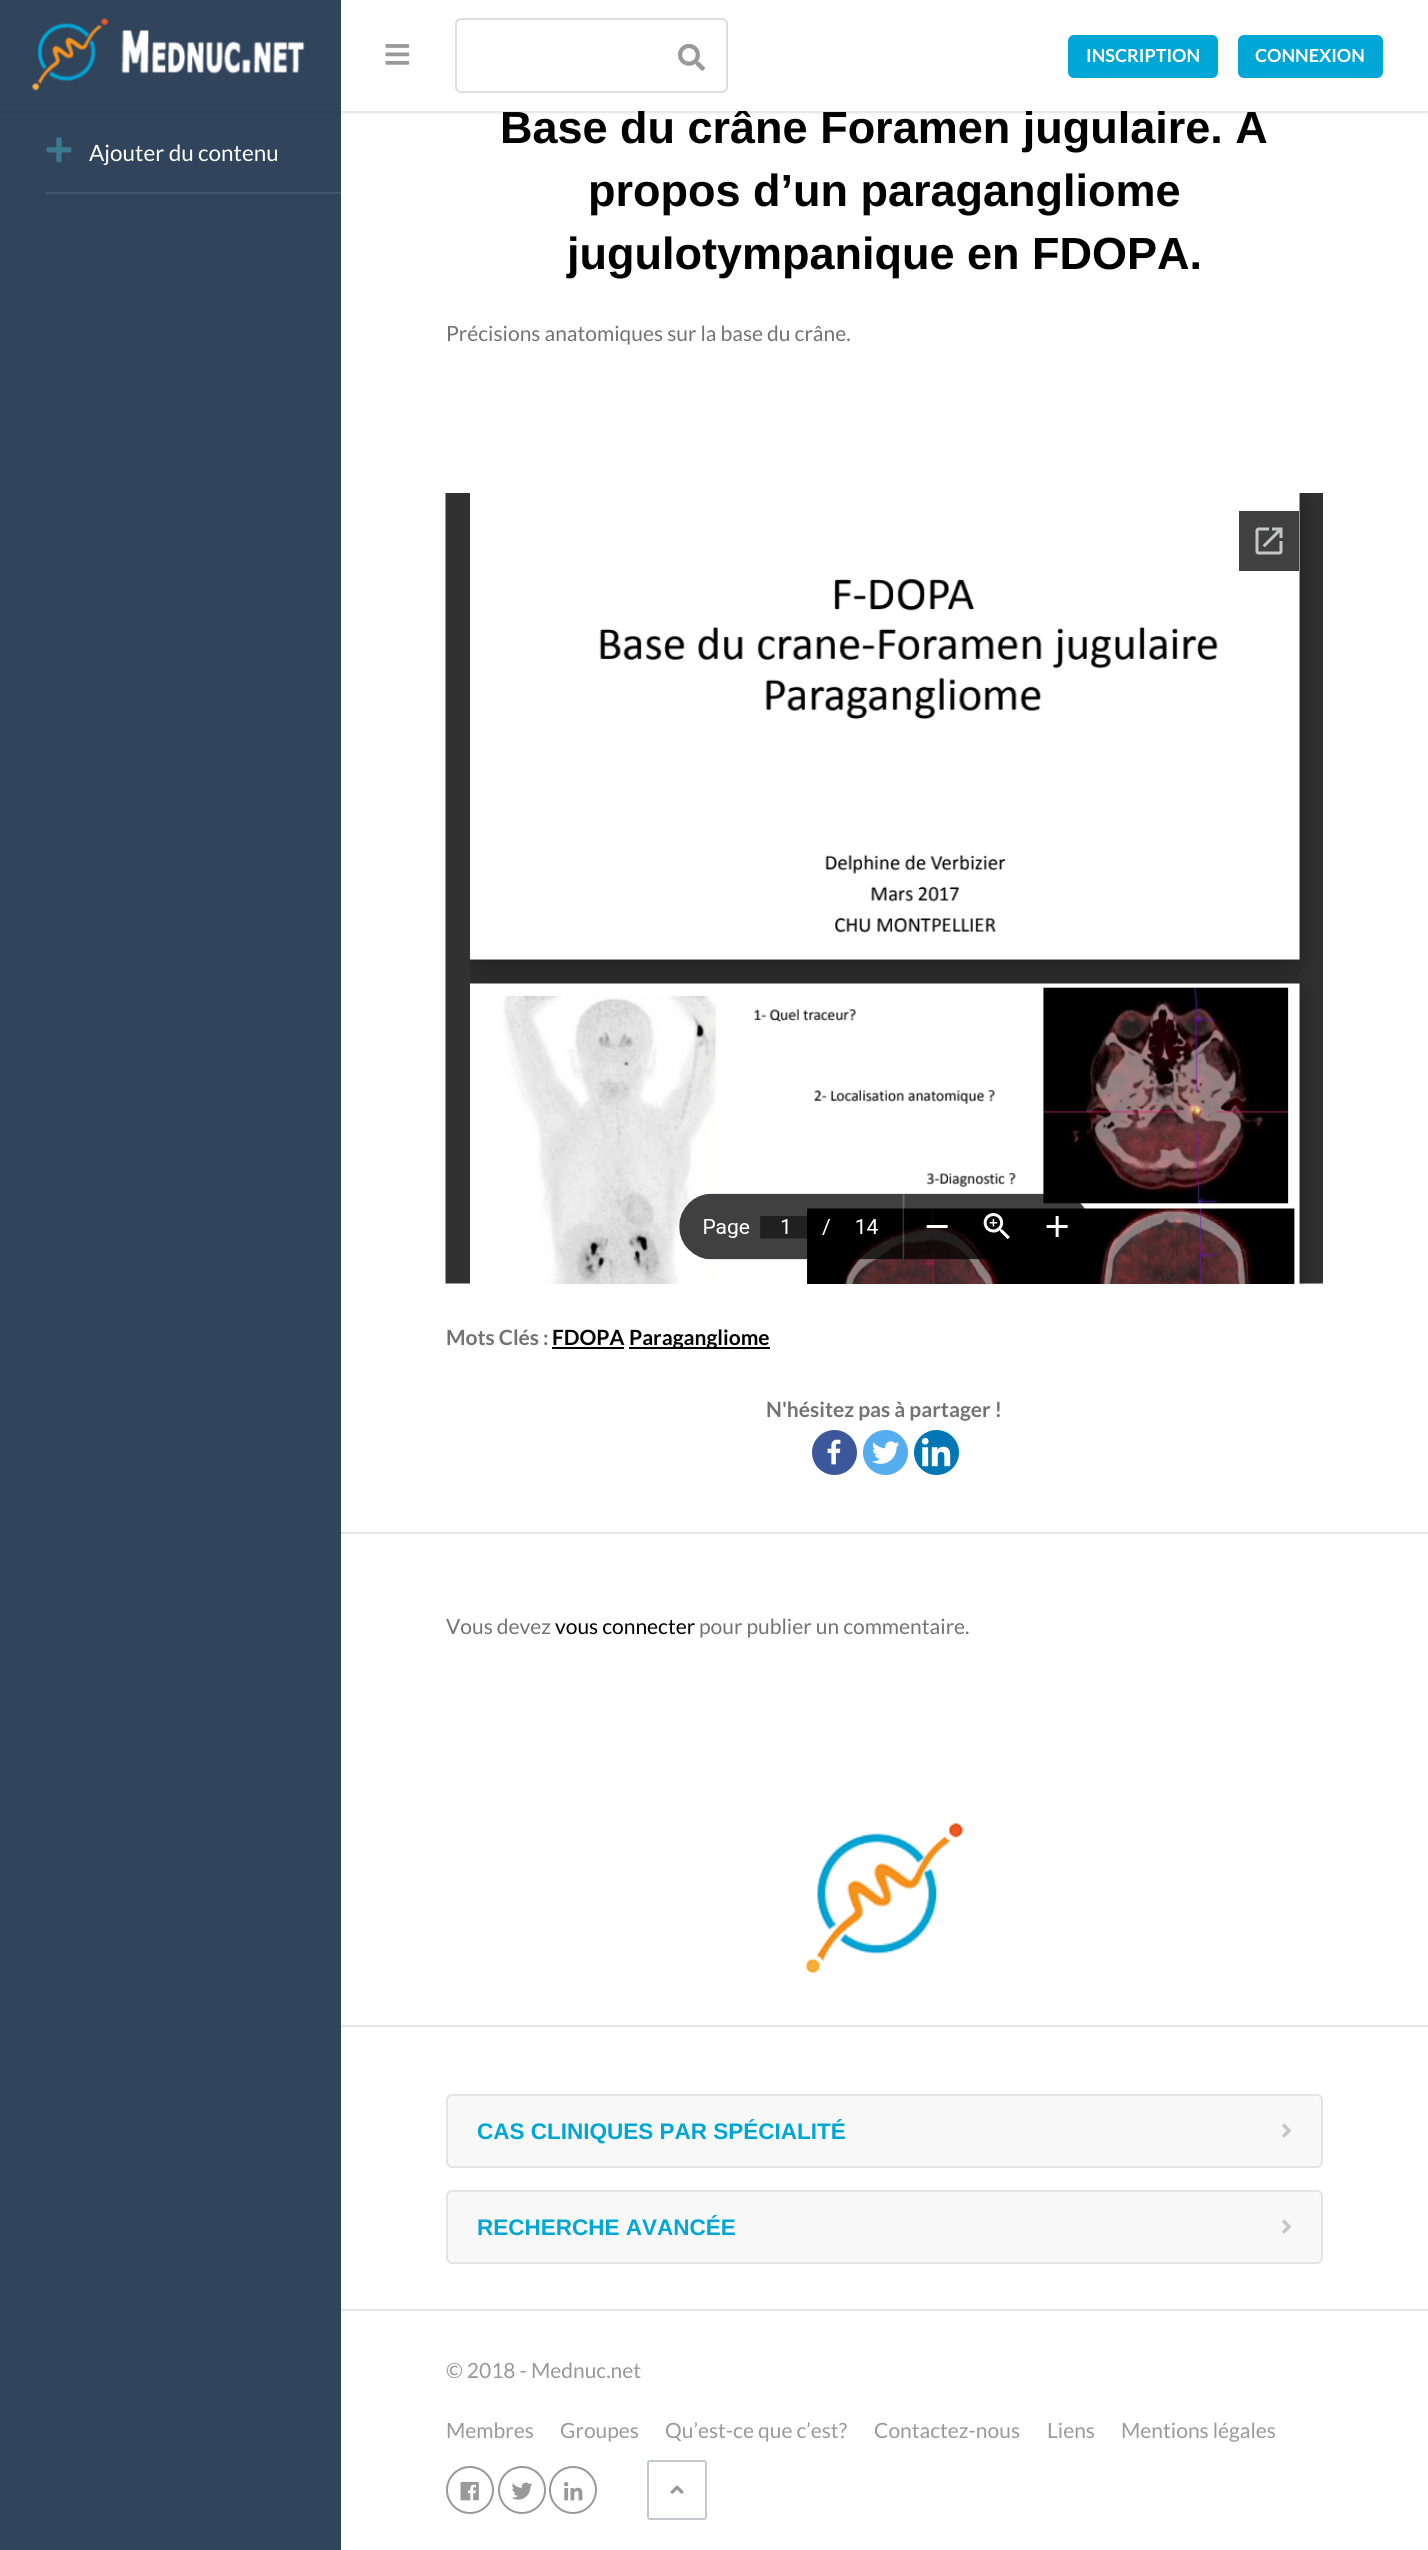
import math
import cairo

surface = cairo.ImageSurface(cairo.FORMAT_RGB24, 1428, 2550)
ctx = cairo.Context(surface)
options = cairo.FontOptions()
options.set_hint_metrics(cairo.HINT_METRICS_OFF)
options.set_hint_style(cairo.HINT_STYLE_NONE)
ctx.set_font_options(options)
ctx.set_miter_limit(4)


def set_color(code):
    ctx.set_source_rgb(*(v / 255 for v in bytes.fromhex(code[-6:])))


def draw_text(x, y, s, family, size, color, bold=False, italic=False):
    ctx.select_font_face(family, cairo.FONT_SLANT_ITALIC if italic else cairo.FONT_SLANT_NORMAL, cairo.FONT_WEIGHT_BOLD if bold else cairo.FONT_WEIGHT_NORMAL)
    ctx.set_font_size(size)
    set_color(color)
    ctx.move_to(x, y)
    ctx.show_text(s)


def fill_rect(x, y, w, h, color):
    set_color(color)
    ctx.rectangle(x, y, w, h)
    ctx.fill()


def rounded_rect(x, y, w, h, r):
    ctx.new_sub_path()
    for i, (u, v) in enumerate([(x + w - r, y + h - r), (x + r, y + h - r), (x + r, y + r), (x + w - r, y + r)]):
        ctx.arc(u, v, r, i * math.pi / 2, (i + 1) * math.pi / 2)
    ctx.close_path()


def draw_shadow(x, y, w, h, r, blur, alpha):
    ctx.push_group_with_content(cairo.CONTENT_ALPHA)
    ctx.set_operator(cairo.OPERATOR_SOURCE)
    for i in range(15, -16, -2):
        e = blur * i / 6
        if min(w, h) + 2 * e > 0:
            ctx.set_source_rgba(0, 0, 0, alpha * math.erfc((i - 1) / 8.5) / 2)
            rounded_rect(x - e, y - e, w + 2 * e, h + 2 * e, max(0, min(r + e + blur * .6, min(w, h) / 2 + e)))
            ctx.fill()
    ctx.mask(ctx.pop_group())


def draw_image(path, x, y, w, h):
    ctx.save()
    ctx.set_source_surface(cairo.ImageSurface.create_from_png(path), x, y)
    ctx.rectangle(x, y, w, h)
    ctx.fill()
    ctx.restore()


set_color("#30445c")
ctx.paint()
fill_rect(341, 111, 1087, 2198, "#ffffff")
ctx.set_source_rgba(0, 0, 0, 0.05)
ctx.rectangle(341, 111, 1087, 2)
ctx.fill()
set_color("#000000")
draw_shadow(341, 3, 1087, 111, 0, 1.5, 0.05)
set_color("#2e4157")
ctx.new_path()
ctx.move_to(0, 111)
ctx.line_to(0, 113)
ctx.line_to(341, 113)
ctx.line_to(341, 2)
ctx.line_to(340, 2)
ctx.line_to(340, 111)
ctx.close_path()
ctx.fill()
fill_rect(340, 2, 1, 109, "#30445c")
draw_image("assets/img1.png", 32, 18, 273, 73)
draw_text(500, 143, "Base du crâne Foramen jugulaire. A", "Arimo", 45, "#000000", bold=True)
fill_rect(341, 0, 1087, 111, "#ffffff")
draw_image("assets/img2.png", 385, 44, 25, 21)
rounded_rect(456, 19, 271, 73, 5)
set_color("#dddddd")
ctx.stroke()
ctx.set_source_rgba(1, 1, 1, 0.15)
rounded_rect(456, 20, 270, 72, 6)
ctx.fill()
draw_image("assets/img3.png", 678, 43, 27, 28)
set_color("#00a6d6")
rounded_rect(1068, 35, 150, 43, 6)
ctx.fill()
draw_text(1086, 62, "INSCRIPTION", "Lato", 18, "#ffffff", bold=True)
set_color("#00a6d6")
rounded_rect(1238, 35, 145, 43, 6)
ctx.fill()
draw_text(1255, 62, "CONNEXION", "Lato", 18, "#ffffff", bold=True)
draw_image("assets/img4.png", 46, 137, 26, 26)
draw_text(89, 161, "Ajouter du contenu", "Lato", 22.5, "#ffffff")
fill_rect(45, 192, 296, 2, "#45576c")
draw_text(588, 206, "propos d’un paragangliome", "Arimo", 45, "#000000", bold=True)
draw_text(567, 269, "jugulotympanique en FDOPA.", "Arimo", 45, "#000000", bold=True)
draw_text(446, 341, "Précisions anatomiques sur la base du crâne.", "Lato", 21, "#737373")
draw_image("assets/img5.png", 445, 493, 878, 791)
draw_text(446, 1345, "Mots Clés :", "Lato", 21, "#737373", bold=True)
draw_text(552, 1345, "FDOPA", "Lato", 21, "#000000", bold=True)
fill_rect(552, 1347, 72, 2, "#000000")
fill_rect(629, 1347, 141, 2, "#000000")
draw_text(629, 1345, "Paragangliome", "Lato", 21, "#000000", bold=True)
draw_text(766, 1417, "N'hésitez pas à partager !", "Lato", 21, "#737373", bold=True)
set_color("#3c589a")
ctx.new_path()
ctx.arc(834.5, 1452.5, 22.5, 0, 2 * math.pi)
ctx.fill()
draw_image("assets/img6.png", 827, 1439, 14, 26)
set_color("#55acee")
ctx.arc(885.5, 1452.5, 22.5, 0, 2 * math.pi)
ctx.fill()
draw_image("assets/img7.png", 872, 1441, 28, 23)
set_color("#0077b5")
ctx.arc(936.5, 1452.5, 22.5, 0, 2 * math.pi)
ctx.fill()
draw_image("assets/img8.png", 921, 1437, 30, 30)
fill_rect(341, 1532, 1087, 2, "#e3e3e3")
draw_text(446, 1634, "Vous devez", "Lato", 21, "#737373")
draw_text(555, 1634, "vous connecter", "Lato", 21, "#000000")
draw_text(699, 1634, "pour publier un commentaire.", "Lato", 21, "#737373")
fill_rect(341, 2025, 1087, 2, "#e3e3e3")
draw_image("assets/img9.png", 805, 1823, 159, 151)
set_color("#f8f8f8")
rounded_rect(447, 2095, 875, 72, 5)
ctx.fill_preserve()
set_color("#e3e3e3")
ctx.stroke()
draw_text(477, 2139, "CAS CLINIQUES PAR SPÉCIALITÉ", "Arimo", 22.5, "#00a6d6", bold=True)
draw_image("assets/img10.png", 1282, 2123, 9, 15)
set_color("#f8f8f8")
rounded_rect(447, 2191, 875, 72, 5)
ctx.fill_preserve()
set_color("#e3e3e3")
ctx.stroke()
draw_text(477, 2235, "RECHERCHE AVANCÉE", "Arimo", 22.5, "#00a6d6", bold=True)
draw_image("assets/img10.png", 1282, 2219, 9, 15)
fill_rect(341, 2311, 1087, 239, "#ffffff")
fill_rect(341, 2309, 1087, 2, "#e3e3e3")
draw_text(446, 2378, "© 2018 - Mednuc.net", "Lato", 21, "#999999")
draw_text(446, 2438, "Membres", "Lato", 21, "#999999")
draw_text(560, 2438, "Groupes", "Lato", 21, "#999999")
draw_text(665, 2438, "Qu’est-ce que c’est?", "Lato", 21, "#999999")
draw_text(874, 2438, "Contactez-nous", "Lato", 21, "#999999")
draw_text(1047, 2438, "Liens", "Lato", 21, "#999999")
draw_text(1121, 2438, "Mentions légales", "Lato", 21, "#999999")
ctx.new_path()
ctx.arc(470, 2490, 23, 0, 2 * math.pi)
ctx.stroke()
draw_image("assets/img11.png", 460, 2481, 19, 20)
ctx.arc(522, 2490, 23, 0, 2 * math.pi)
ctx.stroke()
draw_image("assets/img12.png", 511, 2482, 22, 18)
ctx.arc(573, 2490, 23, 0, 2 * math.pi)
ctx.stroke()
draw_image("assets/img13.png", 564, 2482, 19, 19)
rounded_rect(648, 2461, 58, 58, 2)
set_color("#c2c8ce")
ctx.stroke()
draw_image("assets/img14.png", 670, 2485, 14, 9)
surface.write_to_png("output.png")
